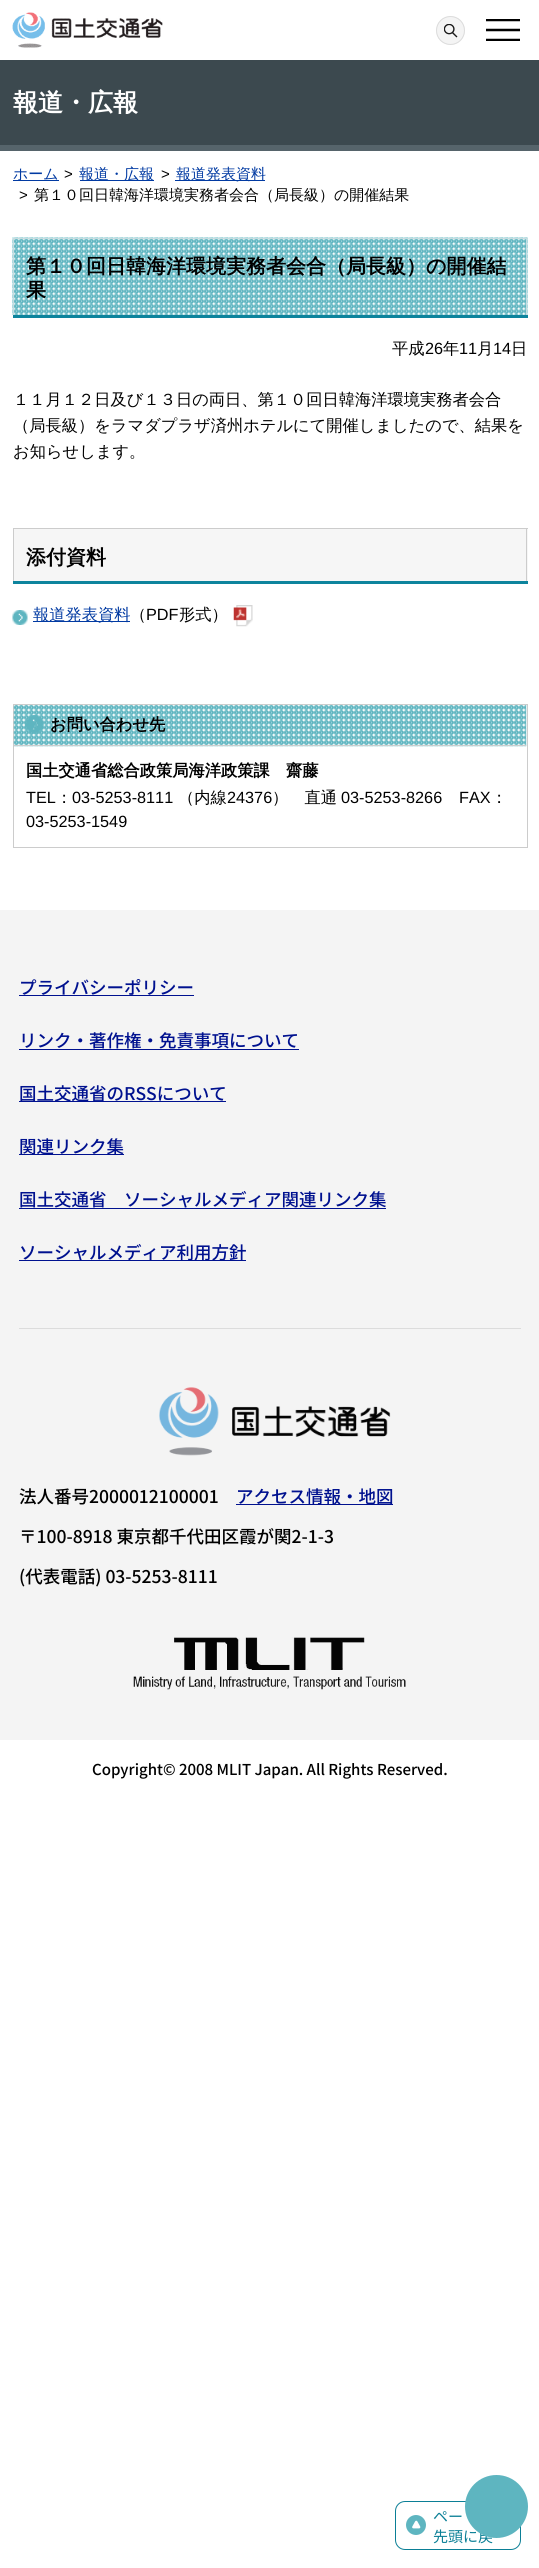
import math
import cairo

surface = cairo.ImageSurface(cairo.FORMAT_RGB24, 539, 2568)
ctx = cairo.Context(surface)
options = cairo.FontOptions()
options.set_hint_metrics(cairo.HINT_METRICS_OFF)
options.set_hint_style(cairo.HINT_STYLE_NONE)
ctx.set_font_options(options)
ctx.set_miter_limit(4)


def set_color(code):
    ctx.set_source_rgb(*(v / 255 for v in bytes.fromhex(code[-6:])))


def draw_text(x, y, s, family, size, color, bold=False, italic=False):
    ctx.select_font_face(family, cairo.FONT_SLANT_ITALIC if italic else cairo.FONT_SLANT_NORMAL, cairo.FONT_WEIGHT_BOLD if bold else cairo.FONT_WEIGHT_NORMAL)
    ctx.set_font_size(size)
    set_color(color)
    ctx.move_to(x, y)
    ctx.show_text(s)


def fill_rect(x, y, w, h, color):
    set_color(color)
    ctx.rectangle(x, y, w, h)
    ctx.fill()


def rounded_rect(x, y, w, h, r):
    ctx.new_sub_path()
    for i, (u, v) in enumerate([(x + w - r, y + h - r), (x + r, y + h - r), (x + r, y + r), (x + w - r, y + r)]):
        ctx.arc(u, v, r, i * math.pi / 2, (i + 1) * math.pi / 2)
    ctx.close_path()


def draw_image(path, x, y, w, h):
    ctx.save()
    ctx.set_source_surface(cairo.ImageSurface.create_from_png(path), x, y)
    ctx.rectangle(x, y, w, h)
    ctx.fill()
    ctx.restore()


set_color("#ffffff")
ctx.paint()
draw_image("assets/img1.png", 12, 12, 151, 36)
set_color("#f4f4f4")
ctx.arc(450.5, 30.5, 14.5, 0, 2 * math.pi)
ctx.fill()
draw_image("assets/img2.png", 444, 24, 14, 14)
ctx.arc(450.5, 30.5, 14, 0, 2 * math.pi)
set_color("#dcdcdc")
ctx.set_line_width(1)
ctx.stroke()
ctx.save()
ctx.rectangle(486, 19, 34, 22)
ctx.clip()
ctx.new_path()
ctx.move_to(486, 20)
ctx.line_to(520, 20)
set_color("#000000")
ctx.set_line_width(2.5)
ctx.stroke()
ctx.restore()
ctx.new_path()
ctx.move_to(486, 30)
ctx.line_to(520, 30)
set_color("#000000")
ctx.set_line_width(2.5)
ctx.stroke()
ctx.save()
ctx.rectangle(486, 19, 34, 22)
ctx.clip()
ctx.new_path()
ctx.move_to(486, 40)
ctx.line_to(520, 40)
ctx.stroke()
ctx.restore()
fill_rect(0, 60, 539, 85, "#3c494f")
fill_rect(0, 145, 539, 6, "#56646b")
draw_text(13, 111, "報道・広報", "WenQuanYi Zen Hei", 25, "#ffffff", bold=True)
fill_rect(13, 180, 46, 1, "#013aa2")
draw_text(13, 179, "ホーム", "WenQuanYi Zen Hei Medium", 15, "#013aa2")
draw_text(64, 179, ">", "Liberation Sans", 15, "#000000")
fill_rect(80, 180, 74, 1, "#013aa2")
draw_text(79, 179, "報道・広報", "WenQuanYi Zen Hei Medium", 15, "#013aa2")
draw_text(161, 179, ">", "Liberation Sans", 15, "#000000")
fill_rect(175, 180, 90, 1, "#013aa2")
draw_text(176, 179, "報道発表資料", "WenQuanYi Zen Hei Medium", 15, "#013aa2")
draw_text(19, 200, ">", "Liberation Sans", 15, "#000000")
draw_text(34, 200, "第１０回日韓海洋環境実務者会合（局長級）の開催結果", "WenQuanYi Zen Hei Medium", 15, "#000000")
fill_rect(13, 315, 515, 3, "#0d849d")
draw_image("assets/img3.png", 12, 237, 516, 78)
fill_rect(13, 238, 515, 1, "#c6dce0")
fill_rect(526, 238, 1, 77, "#c6dce0")
fill_rect(13, 238, 1, 77, "#c6dce0")
draw_text(26, 273, "第１０回日韓海洋環境実務者会合（局長級）の開催結", "WenQuanYi Zen Hei", 20, "#000000", bold=True)
draw_text(26, 297, "果", "WenQuanYi Zen Hei", 20, "#000000", bold=True)
draw_text(392, 354, "平成", "WenQuanYi Zen Hei Medium", 16.25, "#000000")
draw_text(425, 354, "26", "Liberation Sans", 16.25, "#000000")
draw_text(443, 354, "年", "WenQuanYi Zen Hei Medium", 16.25, "#000000")
draw_text(459, 354, "11", "Liberation Sans", 16.25, "#000000")
draw_text(477, 354, "月", "WenQuanYi Zen Hei Medium", 16.25, "#000000")
draw_text(493, 354, "14", "Liberation Sans", 16.25, "#000000")
draw_text(511, 354, "日", "WenQuanYi Zen Hei Medium", 16.25, "#000000")
draw_text(13, 405, "１１月１２日及び１３日の両日、第１０回日韓海洋環境実務者会合", "WenQuanYi Zen Hei Medium", 16.25, "#000000")
draw_text(13, 431, "（局長級）をラマダプラザ済州ホテルにて開催しましたので、結果を", "WenQuanYi Zen Hei Medium", 16.25, "#000000")
draw_text(13, 457, "お知らせします。", "WenQuanYi Zen Hei Medium", 16.25, "#000000")
fill_rect(13, 581, 515, 3, "#0d849d")
fill_rect(14, 529, 514, 52, "#f6f6f6")
fill_rect(13, 528, 515, 1, "#cccccc")
fill_rect(526, 528, 1, 53, "#cccccc")
fill_rect(13, 528, 1, 53, "#cccccc")
draw_text(26, 564, "添付資料", "WenQuanYi Zen Hei", 20, "#000000", bold=True)
draw_image("assets/img4.png", 12, 610, 16, 15)
fill_rect(33, 621, 97, 1, "#013aa2")
draw_text(33, 620, "報道発表資料", "WenQuanYi Zen Hei Medium", 16.25, "#013aa2")
draw_text(130, 620, "（", "WenQuanYi Zen Hei Medium", 16.25, "#000000")
draw_text(146, 620, "PDF", "Liberation Sans", 16.25, "#000000")
draw_text(179, 620, "形式）", "WenQuanYi Zen Hei Medium", 16.25, "#000000")
draw_image("assets/img5.png", 233, 605, 20, 22)
ctx.rectangle(13.5, 704.5, 514, 143)
set_color("#cccccc")
ctx.set_line_width(1)
ctx.stroke()
draw_image("assets/img6.png", 13, 705, 514, 42)
fill_rect(14, 745, 512, 1, "#cccccc")
draw_image("assets/img7.png", 25, 715, 19, 19)
draw_text(50, 730, "お問い合わせ先", "WenQuanYi Zen Hei", 16.25, "#000000", bold=True)
draw_text(26, 776, "国土交通省総合政策局海洋政策課　齋藤", "WenQuanYi Zen Hei", 16.25, "#000000", bold=True)
draw_text(26, 803, "TEL", "Liberation Sans", 16.25, "#000000")
draw_text(56, 803, "：", "WenQuanYi Zen Hei Medium", 16.25, "#000000")
draw_text(72, 803, "03-5253-8111", "Liberation Sans", 16.25, "#000000")
draw_text(178, 803, "（内線", "WenQuanYi Zen Hei Medium", 16.25, "#000000")
draw_text(227, 803, "24376", "Liberation Sans", 16.25, "#000000")
draw_text(272, 803, "）　直通", "WenQuanYi Zen Hei Medium", 16.25, "#000000")
draw_text(341, 803, "03-5253-8266", "Liberation Sans", 16.25, "#000000")
draw_text(459, 803, "FAX", "Liberation Sans", 16.25, "#000000")
draw_text(491, 803, "：", "WenQuanYi Zen Hei Medium", 16.25, "#000000")
draw_text(26, 827, "03-5253-1549", "Liberation Sans", 16.25, "#000000")
draw_image("assets/img10.png", 406, 2515, 20, 20)
rounded_rect(395.5, 2501.5, 125, 48, 9.5)
set_color("#0b7f96")
ctx.stroke()
draw_text(433, 2542, "先頭に戻", "Noto Sans JP", 15, "#0b7f96")
set_color("#5eb5c0")
ctx.new_path()
ctx.arc(496.5, 2506.5, 31.5, 0, 2 * math.pi)
ctx.fill()
fill_rect(0, 910, 539, 830, "#f4f4f4")
fill_rect(19, 1328, 502, 1, "#dcdcdc")
draw_text(19, 994, "プライバシーポリシー", "Noto Sans JP Medium", 17.5, "#00118f")
fill_rect(19, 995, 175, 1, "#00118f")
draw_text(19, 1047, "リンク・著作権・免責事項について", "Noto Sans JP Medium", 17.5, "#00118f")
fill_rect(19, 1049, 280, 1, "#00118f")
fill_rect(19, 1101, 207, 1, "#00118f")
draw_text(19, 1100, "国土交通省のRSSについて", "Noto Sans JP Medium", 17.5, "#00118f")
fill_rect(19, 1154, 105, 1, "#00118f")
draw_text(19, 1153, "関連リンク集", "Noto Sans JP Medium", 17.5, "#00118f")
draw_text(19, 1206, "国土交通省　ソーシャルメディア関連リンク集", "Noto Sans JP Medium", 17.5, "#00118f")
fill_rect(19, 1208, 367, 1, "#00118f")
fill_rect(19, 1260, 227, 1, "#00118f")
draw_text(19, 1259, "ソーシャルメディア利用方針", "Noto Sans JP Medium", 17.5, "#00118f")
draw_image("assets/img8.png", 159, 1387, 232, 69)
draw_text(19, 1503, "法人番号2000012100001", "Noto Sans JP Medium", 17.5, "#000000")
fill_rect(236, 1504, 157, 1, "#00118f")
draw_text(236, 1503, "アクセス情報・地図", "Noto Sans JP Medium", 17.5, "#00118f")
draw_text(19, 1543, "〒100-8918 東京都千代田区霞が関2-1-3", "Noto Sans JP Medium", 17.5, "#000000")
draw_text(19, 1583, "(代表電話) 03-5253-8111", "Noto Sans JP Medium", 17.5, "#000000")
draw_image("assets/img9.png", 133, 1637, 273, 53)
draw_text(92, 1775, "Copyright© 2008 MLIT Japan. All Rights Reserved.", "Noto Sans JP Medium", 15, "#000000")
draw_text(433, 2522, "ペー", "Noto Sans JP", 15, "#0b7f96")
surface.write_to_png("output.png")
